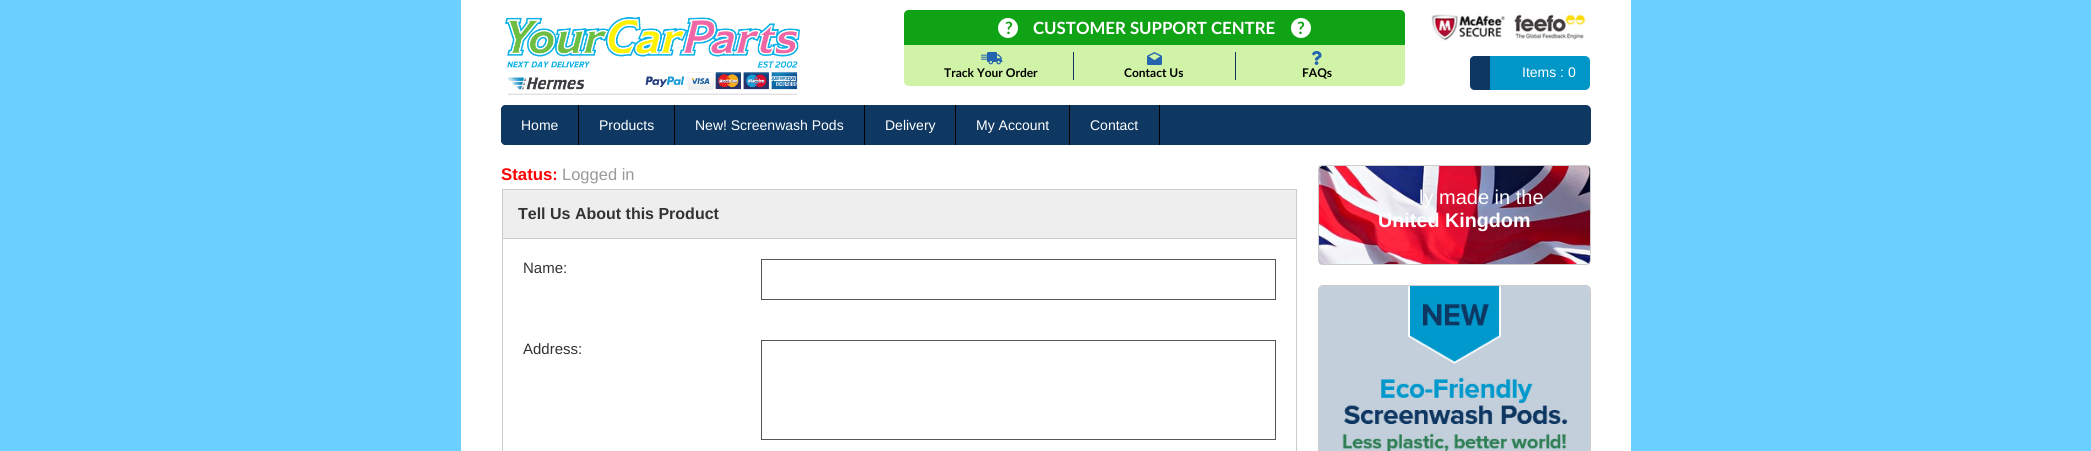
import math
import cairo

surface = cairo.ImageSurface(cairo.FORMAT_RGB24, 2091, 451)
ctx = cairo.Context(surface)
options = cairo.FontOptions()
options.set_hint_metrics(cairo.HINT_METRICS_OFF)
options.set_hint_style(cairo.HINT_STYLE_NONE)
ctx.set_font_options(options)
ctx.set_miter_limit(4)


def set_color(code):
    ctx.set_source_rgb(*(v / 255 for v in bytes.fromhex(code[-6:])))


def draw_text(x, y, s, family, size, color, bold=False, italic=False):
    ctx.select_font_face(family, cairo.FONT_SLANT_ITALIC if italic else cairo.FONT_SLANT_NORMAL, cairo.FONT_WEIGHT_BOLD if bold else cairo.FONT_WEIGHT_NORMAL)
    ctx.set_font_size(size)
    set_color(color)
    ctx.move_to(x, y)
    ctx.show_text(s)


def fill_rect(x, y, w, h, color):
    set_color(color)
    ctx.rectangle(x, y, w, h)
    ctx.fill()


def rounded_rect(x, y, w, h, r):
    ctx.new_sub_path()
    for i, (u, v) in enumerate([(x + w - r, y + h - r), (x + r, y + h - r), (x + r, y + r), (x + w - r, y + r)]):
        ctx.arc(u, v, r, i * math.pi / 2, (i + 1) * math.pi / 2)
    ctx.close_path()


def draw_image(path, x, y, w, h):
    ctx.save()
    ctx.set_source_surface(cairo.ImageSurface.create_from_png(path), x, y)
    ctx.rectangle(x, y, w, h)
    ctx.fill()
    ctx.restore()


set_color("#6bd0ff")
ctx.paint()
fill_rect(461, 0, 1170, 451, "#ffffff")
draw_image("assets/img1.png", 505, 16, 295, 79)
set_color("#d0f3a7")
rounded_rect(904, 10, 501, 76, 5)
ctx.fill()
set_color("#11a316")
ctx.new_path()
ctx.move_to(909, 10)
ctx.line_to(1400, 10)
ctx.curve_to(1403, 10, 1405, 12, 1405, 15)
ctx.line_to(1405, 45)
ctx.line_to(904, 45)
ctx.line_to(904, 15)
ctx.curve_to(904, 12, 906, 10, 909, 10)
ctx.close_path()
ctx.fill()
set_color("#ffffff")
ctx.arc(1008, 28, 10, 0, 2 * math.pi)
ctx.fill()
draw_text(1005, 34, "?", "Lato", 17, "#11a316", bold=True)
draw_text(1033, 34, "CUSTOMER SUPPORT CENTRE", "Lato", 16.8, "#ffffff", bold=True)
ctx.new_path()
ctx.arc(1301, 28, 10, 0, 2 * math.pi)
ctx.fill()
draw_text(1297, 34, "?", "Lato", 17, "#11a316", bold=True)
fill_rect(1073, 52, 1, 28, "#0e3762")
draw_image("assets/img2.png", 981, 52, 22, 13)
draw_text(944, 77, "Track Your Order", "Lato", 12, "#000000", bold=True)
fill_rect(1235, 52, 1, 28, "#0e3762")
draw_image("assets/img3.png", 1147, 52, 15, 13)
draw_text(1124, 77, "Contact Us", "Lato", 12, "#000000", bold=True)
draw_image("assets/img4.png", 1312, 51, 10, 14)
draw_text(1302, 77, "FAQs", "Lato", 12, "#000000", bold=True)
draw_image("assets/img5.png", 1431, 13, 74, 28)
draw_image("assets/img6.png", 1514, 12, 72, 28)
set_color("#0096c7")
rounded_rect(1470, 56, 120, 34, 5)
ctx.fill()
set_color("#0e3762")
ctx.new_path()
ctx.move_to(1475, 56)
ctx.line_to(1490, 56)
ctx.line_to(1490, 90)
ctx.line_to(1475, 90)
ctx.curve_to(1472, 90, 1470, 88, 1470, 85)
ctx.line_to(1470, 61)
ctx.curve_to(1470, 58, 1472, 56, 1475, 56)
ctx.close_path()
ctx.fill()
draw_text(1522, 77, "Items :", "Liberation Sans", 14, "#ffffff")
draw_text(1568, 77, "0", "Liberation Sans", 14, "#ffffff")
set_color("#0e3762")
rounded_rect(501, 105, 1090, 40, 5)
ctx.fill()
ctx.new_path()
ctx.move_to(506, 105)
ctx.line_to(579, 105)
ctx.line_to(579, 145)
ctx.line_to(506, 145)
ctx.curve_to(503, 145, 501, 143, 501, 140)
ctx.line_to(501, 110)
ctx.curve_to(501, 107, 503, 105, 506, 105)
ctx.close_path()
ctx.fill()
fill_rect(578, 105, 1, 40, "#000000")
draw_text(521, 130, "Home", "Liberation Sans", 14, "#ffffff")
fill_rect(674, 105, 1, 40, "#000000")
draw_text(599, 130, "Products", "Liberation Sans", 14, "#ffffff")
fill_rect(864, 105, 1, 40, "#000000")
draw_text(695, 130, "New! Screenwash Pods", "Liberation Sans", 14, "#ffffff")
fill_rect(955, 105, 1, 40, "#000000")
draw_text(885, 130, "Delivery", "Liberation Sans", 14, "#ffffff")
fill_rect(1069, 105, 1, 40, "#000000")
draw_text(976, 130, "My Account", "Liberation Sans", 14, "#ffffff")
fill_rect(1159, 105, 1, 40, "#000000")
draw_text(1090, 130, "Contact", "Liberation Sans", 14, "#ffffff")
draw_text(501, 180, "Status:", "Liberation Sans", 16.8, "#ff0000", bold=True)
draw_text(562, 180, "Logged in", "Liberation Sans", 16.5, "#999999")
ctx.rectangle(502.5, 189.5, 794, 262)
set_color("#cccccc")
ctx.set_line_width(1)
ctx.stroke()
fill_rect(503, 190, 793, 48, "#eeeeee")
fill_rect(503, 238, 793, 1, "#cccccc")
draw_text(518, 219, "Tell Us About this Product", "Liberation Sans", 16, "#333333", bold=True)
draw_text(523, 273, "Name:", "Liberation Sans", 15, "#333333")
ctx.rectangle(761.5, 259.5, 514, 40)
set_color("#555555")
ctx.stroke()
draw_text(523, 354, "Address:", "Liberation Sans", 15, "#333333")
ctx.rectangle(761.5, 340.5, 514, 99)
set_color("#555555")
ctx.stroke()
draw_image("assets/img7.png", 1319, 166, 271, 99)
rounded_rect(1318.5, 165.5, 272, 99, 4.5)
set_color("#cccccc")
ctx.stroke()
draw_text(1419, 204, "ly made in the", "Liberation Sans", 20, "#ffffff")
draw_text(1378, 227, "United Kingdom", "Liberation Sans", 19.75, "#ffffff", bold=True)
rounded_rect(1318.5, 285.5, 272, 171, 4.5)
set_color("#cccccc")
ctx.stroke()
draw_image("assets/img8.png", 1319, 286, 271, 165)
surface.write_to_png("output.png")
